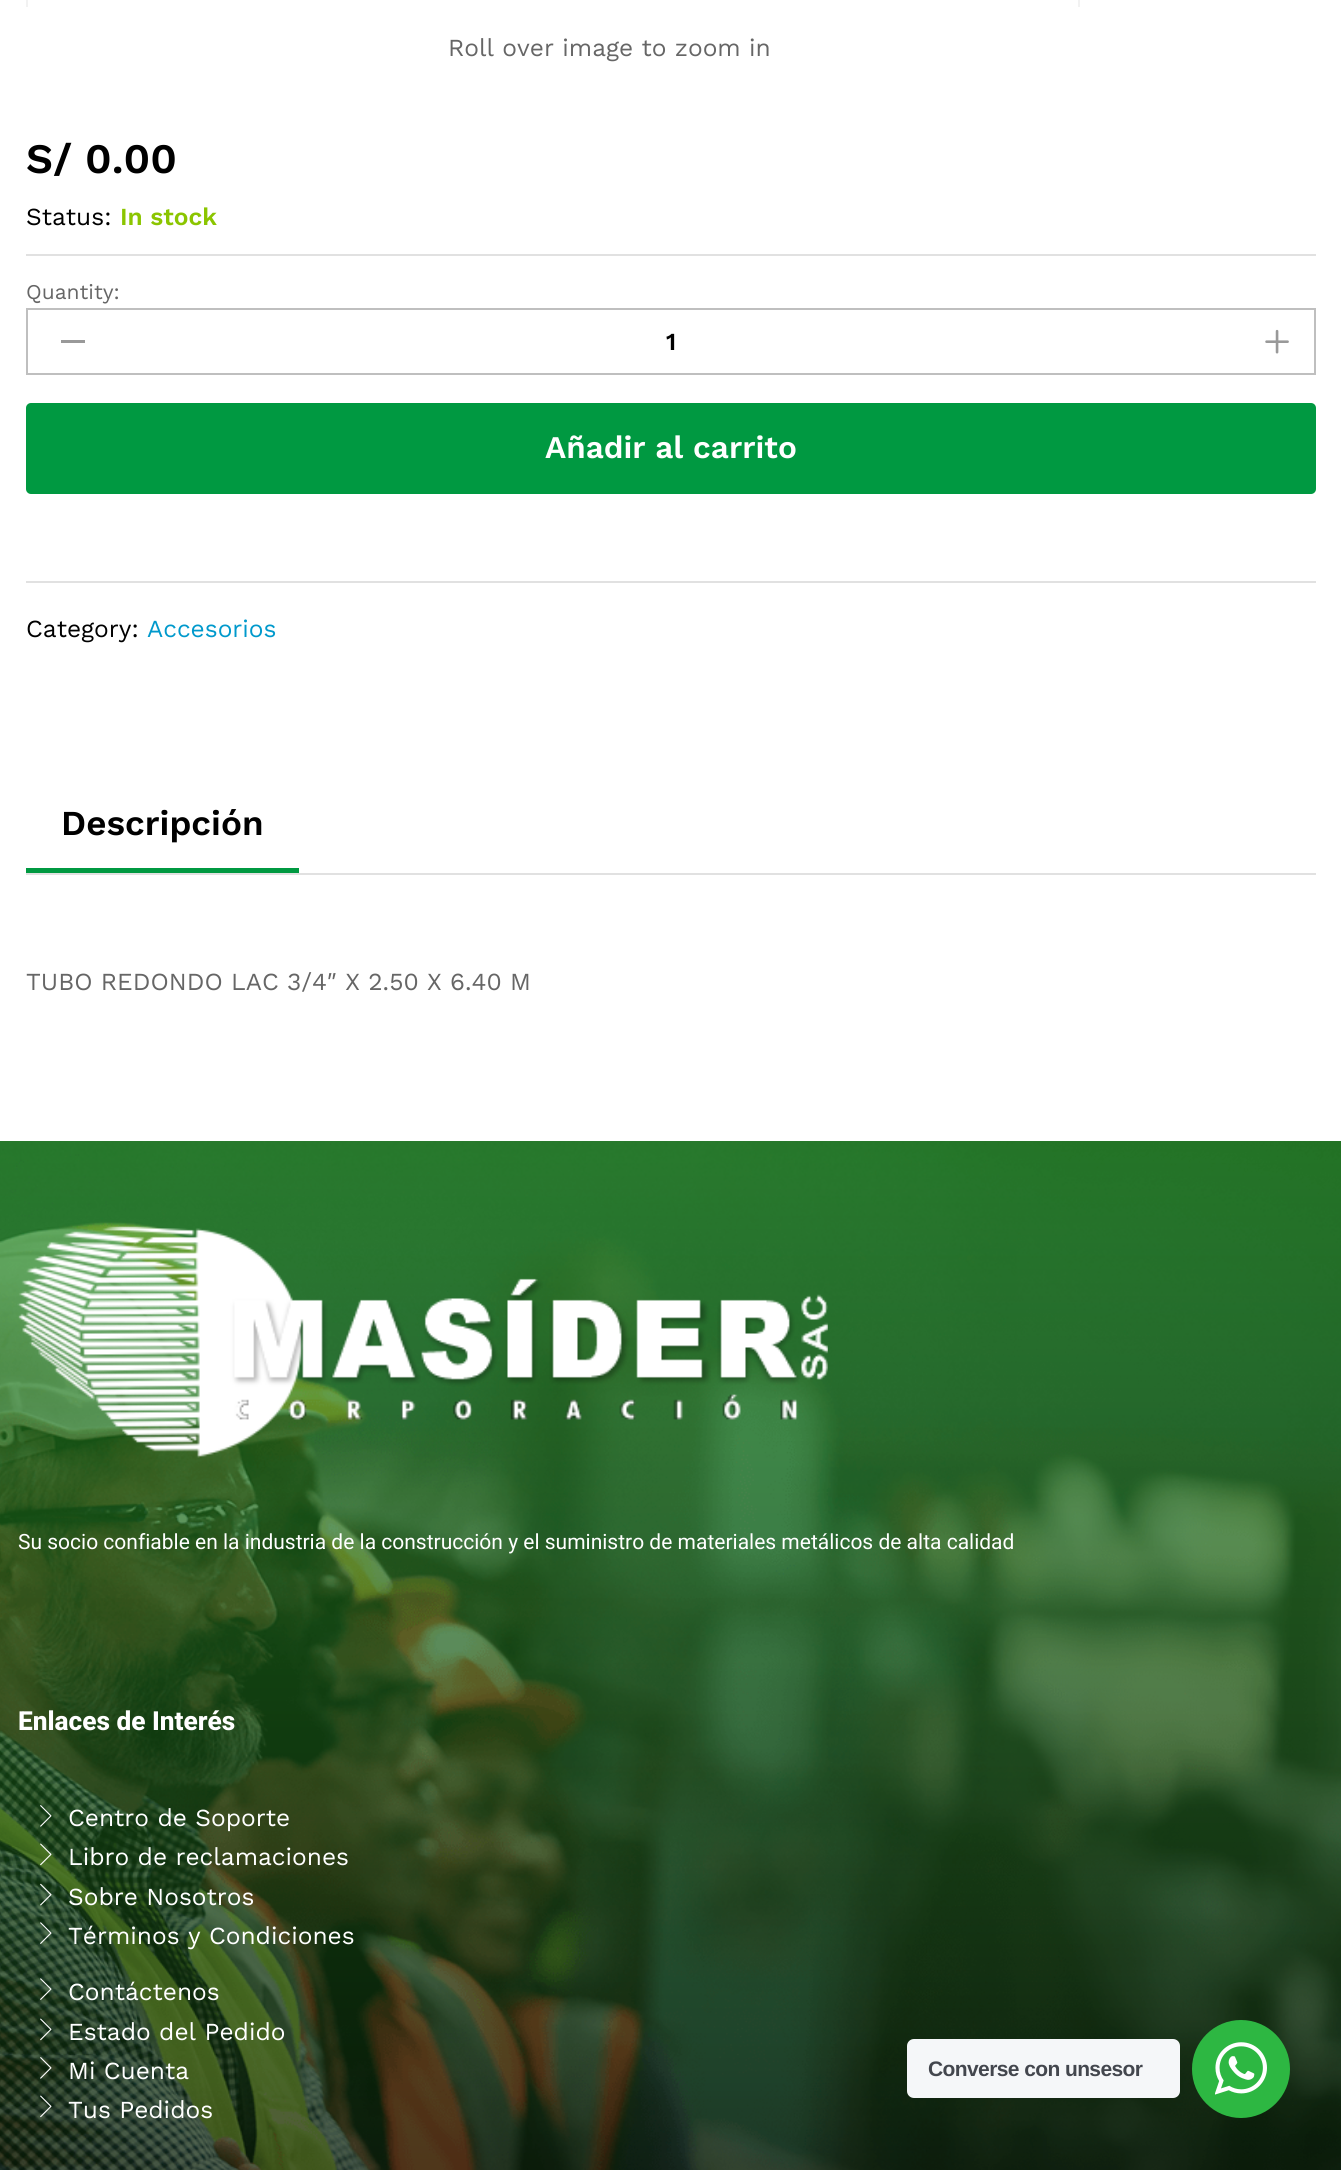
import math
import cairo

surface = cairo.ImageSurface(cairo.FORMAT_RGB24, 1341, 2170)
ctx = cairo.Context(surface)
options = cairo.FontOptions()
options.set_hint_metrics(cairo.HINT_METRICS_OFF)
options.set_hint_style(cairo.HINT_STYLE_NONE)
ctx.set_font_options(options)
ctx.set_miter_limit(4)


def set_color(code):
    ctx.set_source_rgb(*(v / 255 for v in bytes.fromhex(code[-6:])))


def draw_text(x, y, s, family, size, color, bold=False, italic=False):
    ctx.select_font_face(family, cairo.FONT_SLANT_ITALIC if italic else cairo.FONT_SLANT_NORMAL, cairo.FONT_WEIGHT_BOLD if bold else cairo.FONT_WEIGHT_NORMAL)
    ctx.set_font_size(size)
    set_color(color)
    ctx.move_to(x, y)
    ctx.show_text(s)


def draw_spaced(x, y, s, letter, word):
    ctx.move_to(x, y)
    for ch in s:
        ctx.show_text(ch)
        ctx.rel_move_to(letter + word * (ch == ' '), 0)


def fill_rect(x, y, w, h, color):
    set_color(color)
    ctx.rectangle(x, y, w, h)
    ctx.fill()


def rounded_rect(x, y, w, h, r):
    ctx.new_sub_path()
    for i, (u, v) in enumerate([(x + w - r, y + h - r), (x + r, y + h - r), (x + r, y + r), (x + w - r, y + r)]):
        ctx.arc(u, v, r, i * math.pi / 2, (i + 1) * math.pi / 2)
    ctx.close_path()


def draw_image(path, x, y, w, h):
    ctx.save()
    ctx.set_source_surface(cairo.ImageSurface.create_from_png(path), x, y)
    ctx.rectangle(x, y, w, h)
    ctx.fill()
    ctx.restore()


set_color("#ffffff")
ctx.paint()
ctx.rectangle(27, -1, 1052, 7)
set_color("#f2f2f2")
ctx.stroke()
fill_rect(28, 5, 1050, 2, "#ffffff")
draw_text(448, 56, "Roll over image to zoom in", "Work Sans", 24.5, "#666666")
draw_text(26, 173, "S/ 0.00", "Work Sans SemiBold", 42, "#000000")
fill_rect(26, 254, 1290, 2, "#e1e1e1")
draw_text(26, 225, "Status:", "Work Sans", 24.5, "#000000")
draw_text(120, 225, "In stock", "Work Sans SemiBold", 24.5, "#8bc500")
draw_text(26, 299, "Quantity:", "Work Sans", 21, "#666666")
ctx.rectangle(27, 309, 1288, 65)
set_color("#bfbfbf")
ctx.stroke()
fill_rect(61, 340, 24, 3, "#999999")
draw_text(666, 350, "1", "Work Sans SemiBold", 24.5, "#000000")
draw_image("assets/img1.png", 1265, 329, 24, 25)
set_color("#009941")
rounded_rect(26, 403, 1290, 91, 5)
ctx.fill()
draw_text(545, 458, "Añadir al carrito", "Work Sans SemiBold", 31.5, "#ffffff")
fill_rect(26, 581, 1290, 2, "#e1e1e1")
draw_text(26, 637, "Category:", "Work Sans", 24.5, "#000000")
draw_text(147, 637, "Accesorios", "Work Sans", 24.5, "#0099cc")
fill_rect(26, 873, 1290, 2, "#e1e1e1")
draw_text(61, 835, "Descripción", "Work Sans SemiBold", 35, "#000000")
fill_rect(26, 868, 273, 5, "#009941")
draw_text(26, 990, "TUBO REDONDO LAC 3/4″ X 2.50 X 6.40 M", "Work Sans", 24.5, "#666666")
draw_image("assets/img2.png", 0, 1141, 1341, 1029)
draw_image("assets/img3.png", 17, 1226, 811, 232)
draw_text(18, 1549, "Su socio confiable en la industria de la construcción y el suministro de materiales metálicos de alta calidad", "Roboto", 21, "#ffffff")
draw_text(18, 1730, "Enlaces de Interés", "Roboto ExtraBold", 26.25, "#ffffff")
draw_image("assets/img4.png", 40, 1805, 12, 22)
draw_text(68, 1826, "Centro de Soporte", "Work Sans", 24.5, "#ffffff")
draw_image("assets/img5.png", 40, 1843, 12, 23)
draw_text(68, 1865, "Libro de reclamaciones", "Work Sans", 24.5, "#ffffff")
draw_image("assets/img6.png", 40, 1883, 12, 23)
draw_text(68, 1905, "Sobre Nosotros", "Work Sans", 24.5, "#ffffff")
draw_image("assets/img7.png", 40, 1922, 12, 22)
draw_text(68, 1944, "Términos y Condiciones", "Work Sans", 24.5, "#ffffff")
draw_image("assets/img8.png", 40, 1978, 12, 22)
draw_text(68, 2000, "Contáctenos", "Work Sans", 24.5, "#ffffff")
draw_image("assets/img9.png", 40, 2018, 12, 23)
draw_text(68, 2040, "Estado del Pedido", "Work Sans", 24.5, "#ffffff")
draw_image("assets/img10.png", 40, 2057, 12, 22)
draw_text(68, 2079, "Mi Cuenta", "Work Sans", 24.5, "#ffffff")
draw_image("assets/img11.png", 40, 2095, 12, 23)
draw_text(68, 2118, "Tus Pedidos", "Work Sans", 24.5, "#ffffff")
set_color("#f5f7f9")
rounded_rect(907, 2039, 273, 59, 7)
ctx.fill()
ctx.select_font_face("Liberation Sans", cairo.FONT_SLANT_NORMAL, cairo.FONT_WEIGHT_BOLD)
ctx.set_font_size(21)
set_color("#43474e")
draw_spaced(928, 2076, "Converse con unsesor", -0.6, 0)
set_color("#2db742")
ctx.new_path()
ctx.arc(1241, 2069, 49, 0, 2 * math.pi)
ctx.fill()
draw_image("assets/img12.png", 1215, 2042, 52, 53)
surface.write_to_png("output.png")
